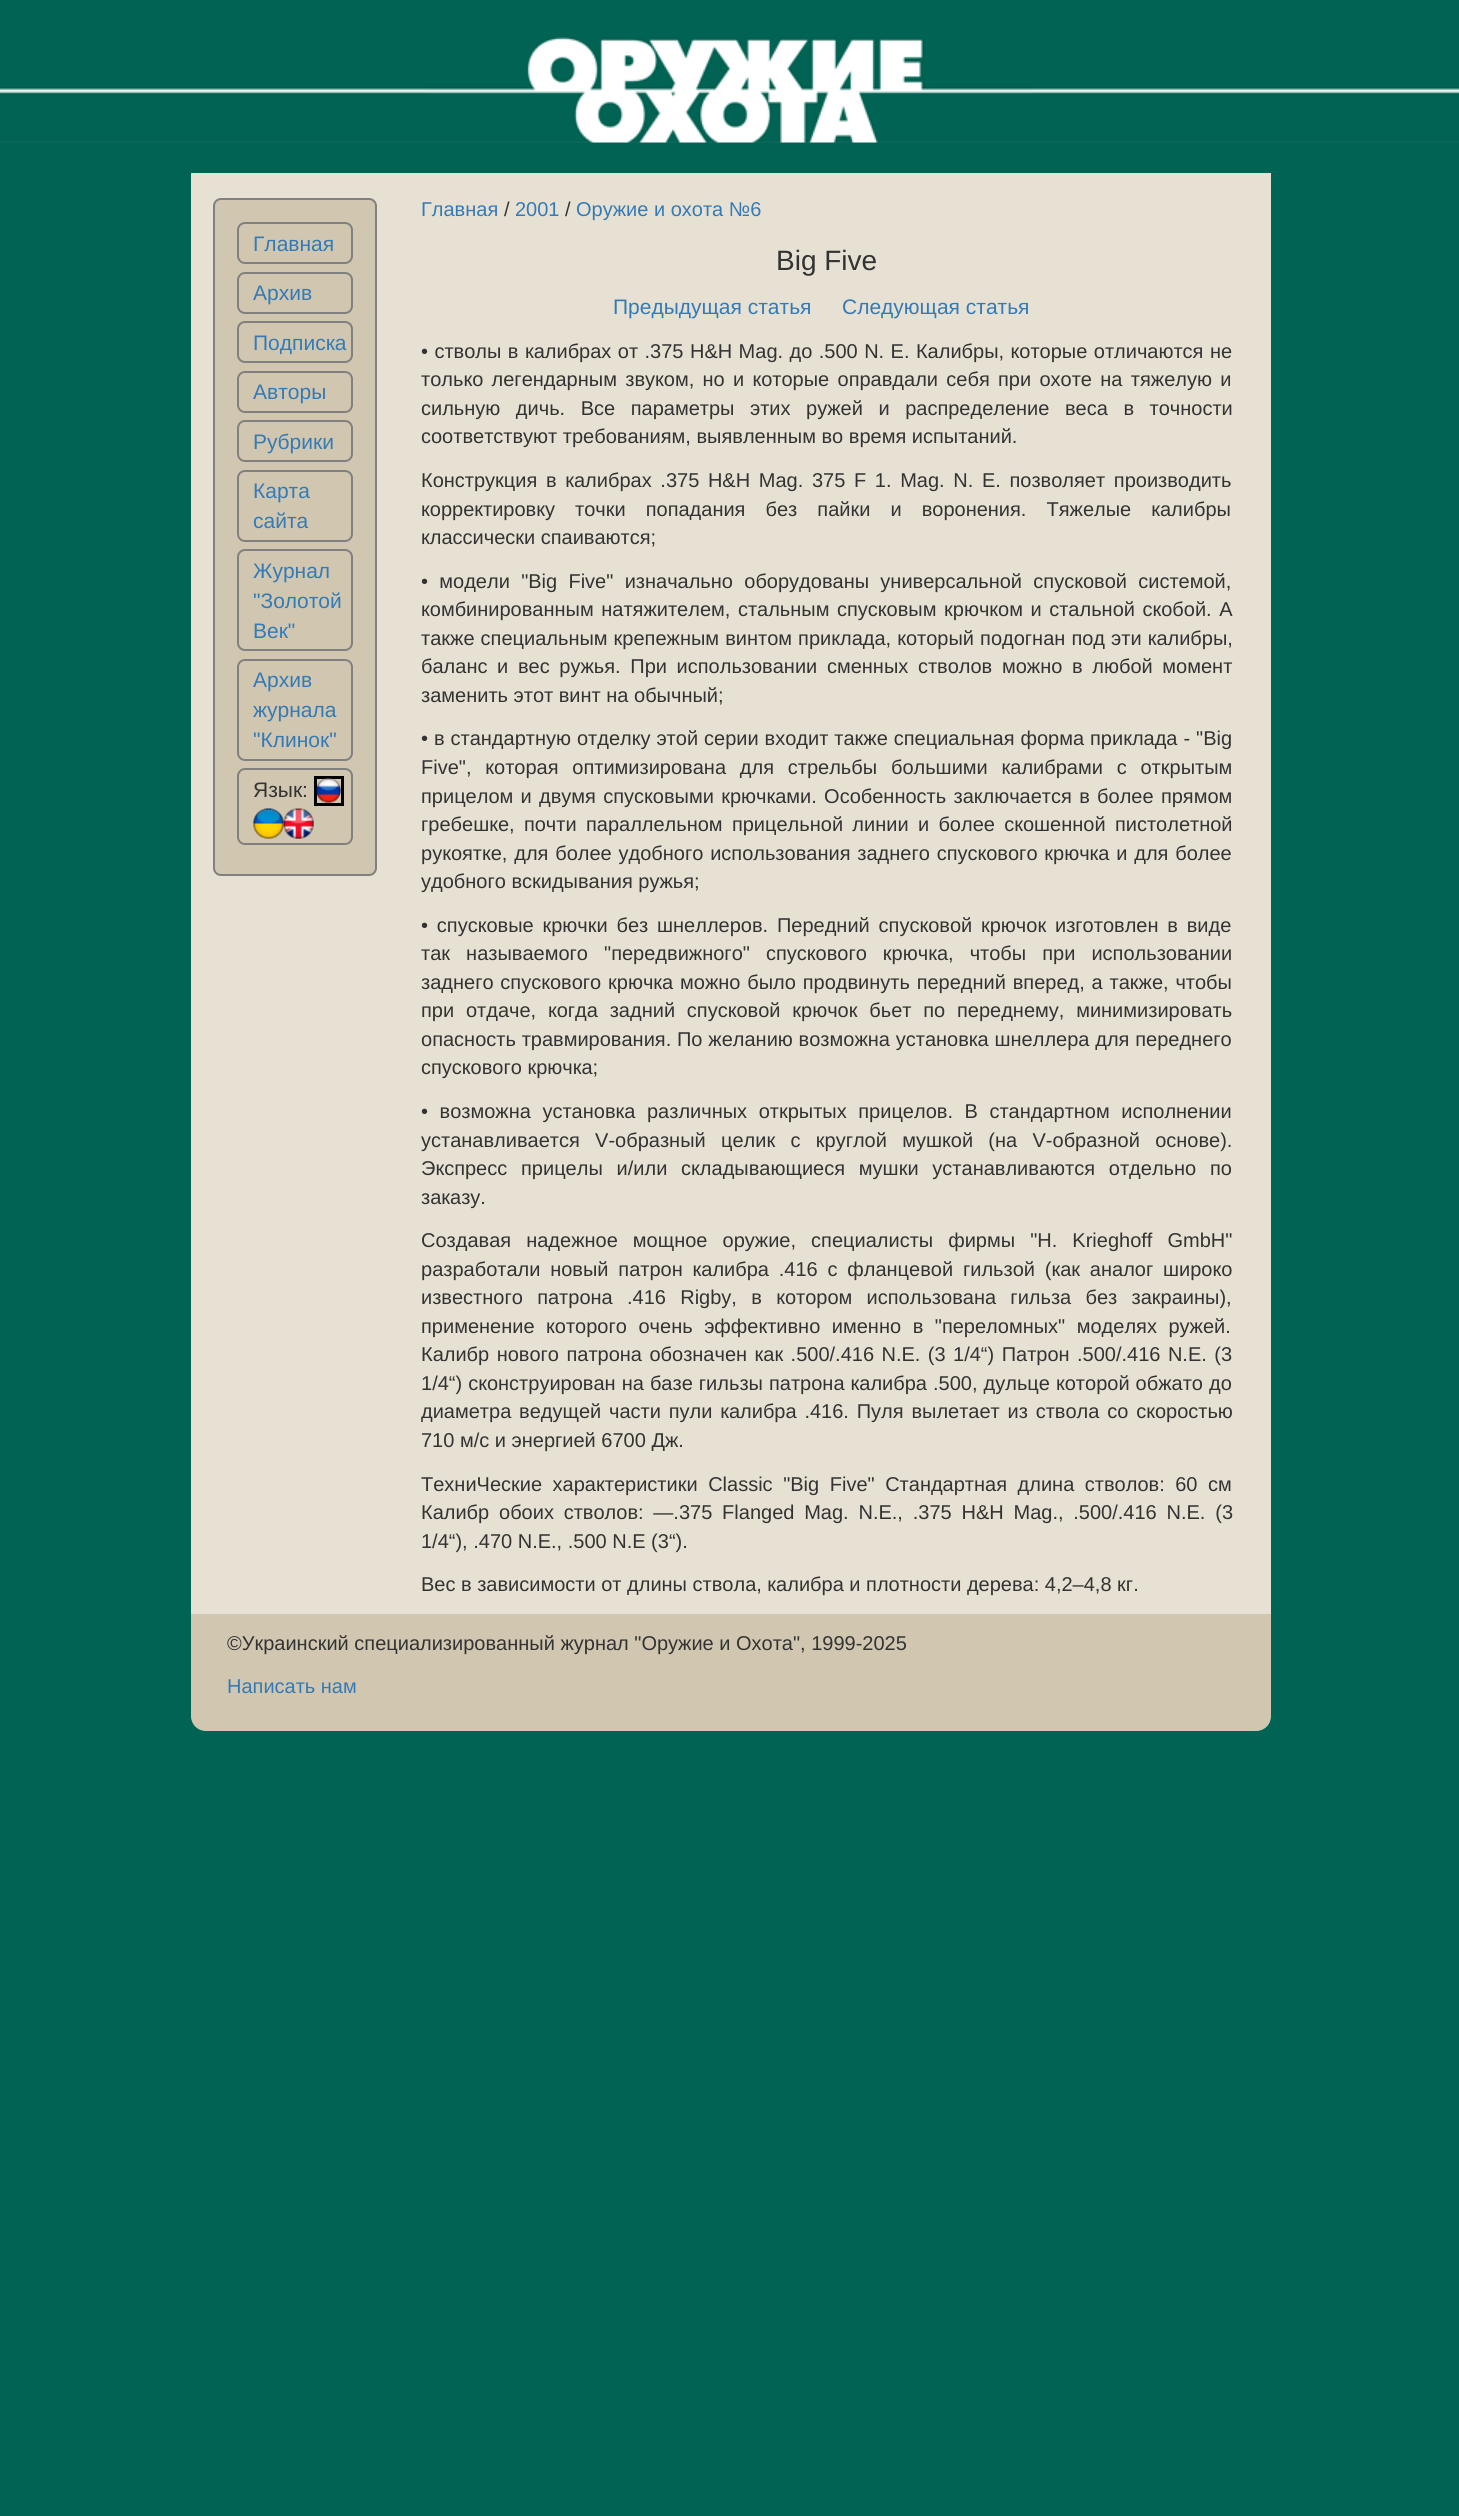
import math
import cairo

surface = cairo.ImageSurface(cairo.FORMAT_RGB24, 1459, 2516)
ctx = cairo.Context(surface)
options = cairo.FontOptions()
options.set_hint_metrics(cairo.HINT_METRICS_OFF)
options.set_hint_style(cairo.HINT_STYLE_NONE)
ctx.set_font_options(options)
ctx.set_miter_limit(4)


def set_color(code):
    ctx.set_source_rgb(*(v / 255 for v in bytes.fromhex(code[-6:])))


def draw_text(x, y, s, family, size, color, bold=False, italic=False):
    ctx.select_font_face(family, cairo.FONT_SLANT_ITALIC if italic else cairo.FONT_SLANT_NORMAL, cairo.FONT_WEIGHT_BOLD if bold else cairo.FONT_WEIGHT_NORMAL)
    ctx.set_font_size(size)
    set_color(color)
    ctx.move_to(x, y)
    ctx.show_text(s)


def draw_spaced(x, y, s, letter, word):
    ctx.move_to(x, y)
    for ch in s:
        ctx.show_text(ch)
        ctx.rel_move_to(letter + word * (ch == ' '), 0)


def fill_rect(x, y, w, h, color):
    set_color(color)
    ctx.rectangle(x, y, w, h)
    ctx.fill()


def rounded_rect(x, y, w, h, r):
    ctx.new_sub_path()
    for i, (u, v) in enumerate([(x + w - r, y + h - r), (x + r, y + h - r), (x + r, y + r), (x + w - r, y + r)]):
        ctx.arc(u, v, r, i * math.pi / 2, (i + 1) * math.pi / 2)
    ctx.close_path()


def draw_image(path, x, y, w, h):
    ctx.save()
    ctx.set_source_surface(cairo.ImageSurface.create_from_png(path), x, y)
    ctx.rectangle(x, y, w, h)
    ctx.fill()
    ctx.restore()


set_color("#006354")
ctx.paint()
draw_image("assets/img1.png", 0, 87, 1459, 56)
draw_image("assets/img2.png", 426, 36, 607, 107)
fill_rect(191, 173, 1080, 1441, "#e7e1d4")
set_color("#d1c7b0")
rounded_rect(214, 199, 162, 676, 7)
ctx.fill_preserve()
set_color("#808080")
ctx.stroke()
rounded_rect(238, 223, 114, 40, 7)
ctx.stroke()
draw_text(253, 251, "Главная", "Liberation Sans", 21, "#337ab7")
rounded_rect(238, 273, 114, 40, 7)
set_color("#808080")
ctx.stroke()
draw_text(253, 300, "Архив", "Liberation Sans", 21, "#337ab7")
rounded_rect(238, 322, 114, 40, 7)
set_color("#808080")
ctx.stroke()
draw_text(253, 350, "Подписка", "Liberation Sans", 21, "#337ab7")
rounded_rect(238, 372, 114, 40, 7)
set_color("#808080")
ctx.stroke()
draw_text(253, 399, "Авторы", "Liberation Sans", 21, "#337ab7")
rounded_rect(238, 421, 114, 40, 7)
set_color("#808080")
ctx.stroke()
draw_text(253, 449, "Рубрики", "Liberation Sans", 21, "#337ab7")
rounded_rect(238, 471, 114, 70, 7)
set_color("#808080")
ctx.stroke()
draw_text(253, 498, "Карта", "Liberation Sans", 21, "#337ab7")
draw_text(253, 528, "сайта", "Liberation Sans", 21, "#337ab7")
rounded_rect(238, 550, 114, 100, 7)
set_color("#808080")
ctx.stroke()
draw_text(253, 578, "Журнал", "Liberation Sans", 21, "#337ab7")
draw_text(253, 608, "\"Золотой", "Liberation Sans", 21, "#337ab7")
draw_text(253, 638, "Век\"", "Liberation Sans", 21, "#337ab7")
rounded_rect(238, 660, 114, 100, 7)
set_color("#808080")
ctx.stroke()
draw_text(253, 687, "Архив", "Liberation Sans", 21, "#337ab7")
draw_text(253, 717, "журнала", "Liberation Sans", 21, "#337ab7")
draw_text(253, 747, "\"Клинок\"", "Liberation Sans", 21, "#337ab7")
rounded_rect(238, 769, 114, 75, 7)
set_color("#808080")
ctx.stroke()
ctx.rectangle(315.5, 777.5, 27, 27)
set_color("#000000")
ctx.set_line_width(3)
ctx.stroke()
draw_text(253, 797, "Язык:", "Liberation Sans", 21, "#333333")
draw_image("assets/img3.png", 316, 778, 25, 25)
draw_image("assets/img4.png", 253, 808, 31, 31)
draw_image("assets/img5.png", 283, 808, 31, 31)
draw_text(421, 216, "Главная", "Liberation Sans", 20, "#337ab7")
draw_text(504, 216, "/", "Liberation Sans", 20, "#333333")
draw_text(515, 216, "2001", "Liberation Sans", 20, "#337ab7")
draw_text(565, 216, "/", "Liberation Sans", 20, "#333333")
draw_text(576, 216, "Оружие и охота №6", "Liberation Sans", 20, "#337ab7")
draw_text(776, 270, "Big Five", "Liberation Sans", 28, "#333333")
draw_text(613, 314, "Предыдущая статья", "Liberation Sans", 21, "#337ab7")
draw_text(842, 314, "Следующая статья", "Liberation Sans", 21, "#337ab7")
ctx.set_font_size(20)
set_color("#333333")
draw_spaced(421, 358, "• стволы в калибрах от .375 H&H Mag. до .500 N. E. Калибры, которые отличаются не", 0, 0.9)
draw_spaced(421, 386, "только легендарным звуком, но и которые оправдали себя при охоте на тяжелую и", 0, 2.75)
draw_spaced(421, 415, "сильную дичь. Все параметры этих ружей и распределение веса в точности", 0, 10)
draw_text(421, 443, "соответствуют требованиям, выявленным во время испытаний.", "Liberation Sans", 20, "#333333")
draw_spaced(421, 487, "Конструкция в калибрах .375 H&H Mag. 375 F 1. Mag. N. E. позволяет производить", 0, 3.1)
draw_spaced(421, 516, "корректировку точки попадания без пайки и воронения. Тяжелые калибры", 0, 14.5)
draw_text(421, 544, "классически спаиваются;", "Liberation Sans", 20, "#333333")
draw_spaced(421, 588, "• модели \"Big Five\" изначально оборудованы универсальной спусковой системой,", 0, 5.75)
draw_spaced(421, 616, "комбинированным натяжителем, стальным спусковым крючком и стальной скобой. А", 0, 2)
draw_spaced(421, 645, "также специальным крепежным винтом приклада, который подогнан под эти калибры,", 0, 0.5)
draw_spaced(421, 673, "баланс и вес ружья. При использовании сменных стволов можно в любой момент", 0, 4.1)
draw_text(421, 702, "заменить этот винт на обычный;", "Liberation Sans", 20, "#333333")
draw_spaced(421, 745, "• в стандартную отделку этой серии входит также специальная форма приклада - \"Big", 0, 0.4)
draw_spaced(421, 774, "Five\", которая оптимизирована для стрельбы большими калибрами с открытым", 0, 8.25)
draw_spaced(421, 803, "прицелом и двумя спусковыми крючками. Особенность заключается в более прямом", 0, 1.75)
draw_spaced(421, 831, "гребешке, почти параллельном прицельной линии и более скошенной пистолетной", 0, 3.75)
draw_spaced(421, 860, "рукоятке, для более удобного использования заднего спускового крючка и для более", 0, 1.25)
draw_text(421, 888, "удобного вскидывания ружья;", "Liberation Sans", 20, "#333333")
draw_spaced(421, 932, "• спусковые крючки без шнеллеров. Передний спусковой крючок изготовлен в виде", 0, 3.25)
draw_spaced(421, 960, "так называемого \"передвижного\" спускового крючка, чтобы при использовании", 0, 10.5)
draw_spaced(421, 989, "заднего спускового крючка можно было продвинуть передний вперед, а также, чтобы", 0, 1.25)
draw_spaced(421, 1017, "при отдаче, когда задний спусковой крючок бьет по переднему, минимизировать", 0, 6.25)
draw_spaced(421, 1046, "опасность травмирования. По желанию возможна установка шнеллера для переднего", 0, 0.25)
draw_text(421, 1074, "спускового крючка;", "Liberation Sans", 20, "#333333")
draw_spaced(421, 1118, "• возможна установка различных открытых прицелов. В стандартном исполнении", 0, 6)
draw_spaced(421, 1147, "устанавливается V-образный целик с круглой мушкой (на V-образной основе).", 0, 9.75)
draw_spaced(421, 1175, "Экспресс прицелы и/или складывающиеся мушки устанавливаются отдельно по", 0, 8.25)
draw_text(421, 1204, "заказу.", "Liberation Sans", 20, "#333333")
draw_spaced(421, 1247, "Создавая надежное мощное оружие, специалисты фирмы \"H. Krieghoff GmbH\"", 0, 9.5)
draw_spaced(421, 1276, "разработали новый патрон калибра .416 с фланцевой гильзой (как аналог широко", 0, 4.25)
draw_spaced(421, 1304, "известного патрона .416 Rigby, в котором использована гильза без закраины),", 0, 8.75)
draw_spaced(421, 1333, "применение которого очень эффективно именно в \"переломных\" моделях ружей.", 0, 6)
draw_spaced(421, 1361, "Калибр нового патрона обозначен как .500/.416 N.E. (3 1/4“) Патрон .500/.416 N.E. (3", 0, 1.9)
draw_spaced(421, 1390, "1/4“) сконструирован на базе гильзы патрона калибра .500, дульце которой обжато до", 0, 0.5)
draw_spaced(421, 1418, "диаметра ведущей части пули калибра .416. Пуля вылетает из ствола со скоростью", 0, 2.25)
draw_text(421, 1447, "710 м/с и энергией 6700 Дж.", "Liberation Sans", 20, "#333333")
draw_spaced(421, 1491, "ТехниЧеские характеристики Classic \"Big Five\" Стандартная длина стволов: 60 см", 0, 5)
draw_spaced(421, 1519, "Калибр обоих стволов: —.375 Flanged Mag. N.E., .375 H&H Mag., .500/.416 N.E. (3", 0, 4.25)
draw_text(421, 1548, "1/4“), .470 N.E., .500 N.E (3“).", "Liberation Sans", 20, "#333333")
draw_text(421, 1591, "Вес в зависимости от длины ствола, калибра и плотности дерева: 4,2–4,8 кг.", "Liberation Sans", 20, "#333333")
set_color("#d1c7b0")
ctx.new_path()
ctx.move_to(191, 1614)
ctx.line_to(1271, 1614)
ctx.line_to(1271, 1716)
ctx.curve_to(1271, 1724.5, 1264.5, 1731, 1256, 1731)
ctx.line_to(206, 1731)
ctx.curve_to(197.5, 1731, 191, 1724.5, 191, 1716)
ctx.close_path()
ctx.fill()
draw_text(227, 1650, "©Украинский специализированный журнал \"Оружие и Охота\", 1999-2025", "Liberation Sans", 20, "#333333")
draw_text(227, 1693, "Написать нам", "Liberation Sans", 20, "#337ab7")
surface.write_to_png("output.png")
